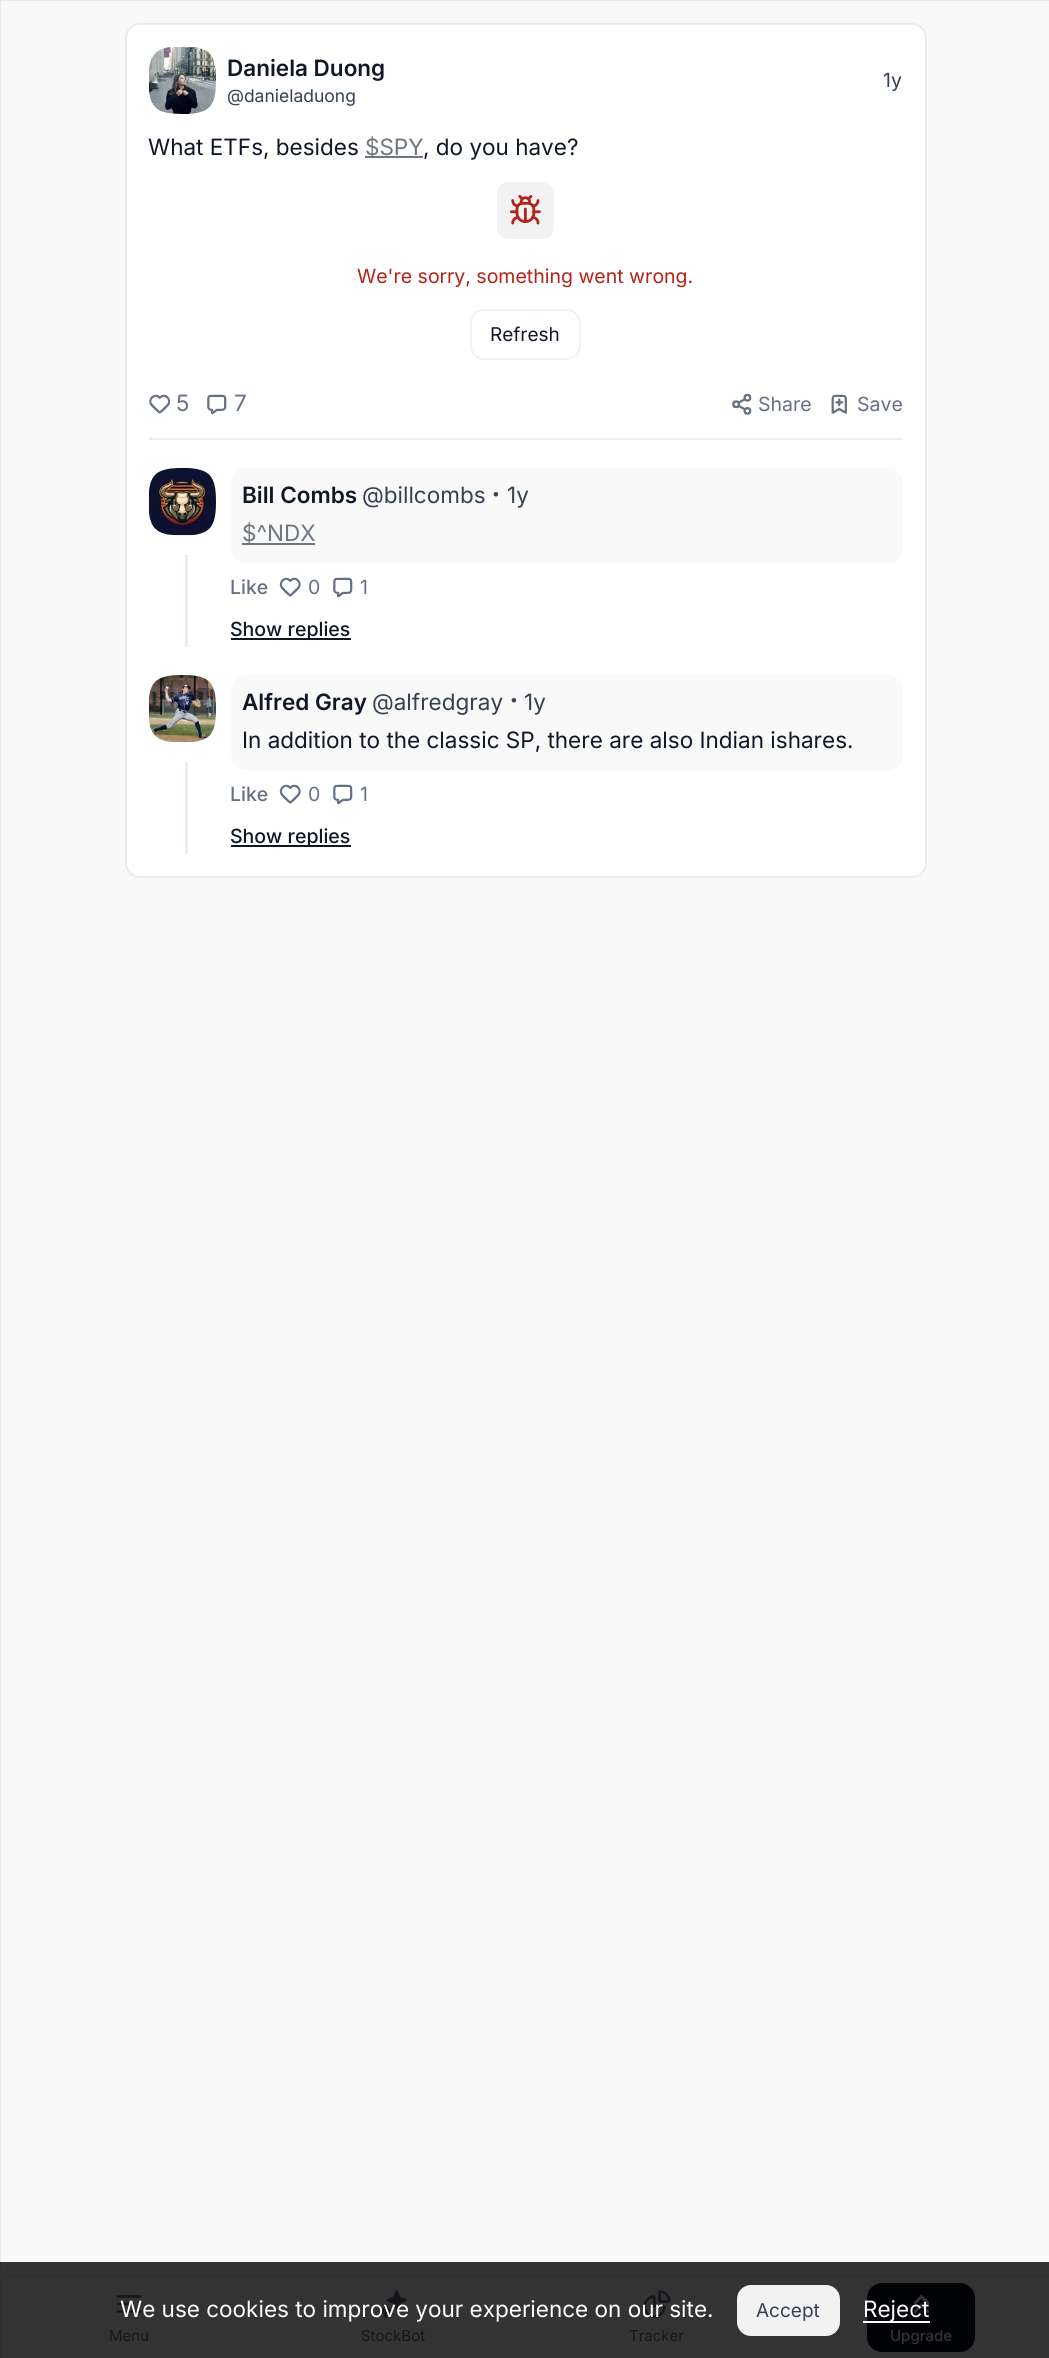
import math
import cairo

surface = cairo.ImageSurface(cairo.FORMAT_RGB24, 1049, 2358)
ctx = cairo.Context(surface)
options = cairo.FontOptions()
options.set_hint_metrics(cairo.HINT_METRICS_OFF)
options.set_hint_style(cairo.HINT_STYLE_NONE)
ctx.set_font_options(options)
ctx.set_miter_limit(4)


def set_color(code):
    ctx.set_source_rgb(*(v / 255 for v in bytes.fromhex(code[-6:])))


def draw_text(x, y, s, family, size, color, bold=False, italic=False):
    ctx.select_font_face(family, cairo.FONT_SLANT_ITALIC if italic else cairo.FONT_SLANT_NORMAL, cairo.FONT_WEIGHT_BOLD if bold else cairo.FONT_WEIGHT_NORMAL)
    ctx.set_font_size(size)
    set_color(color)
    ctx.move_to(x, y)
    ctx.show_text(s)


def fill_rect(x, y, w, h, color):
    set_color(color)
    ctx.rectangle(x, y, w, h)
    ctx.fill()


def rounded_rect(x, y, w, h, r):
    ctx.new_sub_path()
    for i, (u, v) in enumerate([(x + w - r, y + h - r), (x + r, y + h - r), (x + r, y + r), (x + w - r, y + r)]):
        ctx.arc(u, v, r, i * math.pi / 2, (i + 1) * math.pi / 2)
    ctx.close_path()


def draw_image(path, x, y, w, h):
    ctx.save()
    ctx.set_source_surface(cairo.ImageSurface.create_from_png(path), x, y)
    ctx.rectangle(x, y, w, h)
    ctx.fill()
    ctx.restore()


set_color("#f9f9f9")
ctx.paint()
fill_rect(1, 2262, 1048, 14, "#323232")
fill_rect(0, 0, 1049, 1, "#e9ecf4")
fill_rect(0, 0, 1, 2262, "#e9ecf4")
fill_rect(0, 2276, 1049, 2, "#2f3031")
fill_rect(0, 2262, 1, 96, "#2f2f31")
set_color("#ffffff")
rounded_rect(126, 24, 800, 853, 14)
ctx.fill_preserve()
set_color("#e9ecf4")
ctx.stroke()
draw_image("assets/img1.png", 149, 47, 67, 67)
draw_text(227, 76, "Daniela Duong", "Inter SemiBold", 22.5, "#101828")
draw_text(227, 102, "@danieladuong", "Inter", 17.5, "#344054")
draw_text(883, 87, "1y", "Inter", 19.5, "#344054")
draw_text(148, 155, "What ETFs, besides", "Inter", 22.5, "#101828")
fill_rect(365, 156, 58, 2, "#6f767e")
draw_text(365, 155, "$SPY", "Inter", 22.5, "#6f767e")
draw_text(423, 155, ", do you have?", "Inter", 22.5, "#101828")
set_color("#f2f2f2")
rounded_rect(497, 182, 57, 57, 12)
ctx.fill()
draw_image("assets/img2.png", 509, 194, 32, 31)
draw_text(357, 283, "We're sorry, something went wrong.", "Inter", 19.5, "#b32318")
rounded_rect(471, 310, 109, 49, 13)
set_color("#f2f2f2")
ctx.stroke()
draw_text(490, 341, "Refresh", "Inter", 19, "#101828")
draw_image("assets/img3.png", 149, 394, 22, 20)
draw_text(176, 411, "5", "Inter", 22.5, "#667085")
draw_image("assets/img4.png", 207, 394, 20, 21)
draw_text(234, 411, "7", "Inter", 22.5, "#667085")
draw_image("assets/img5.png", 732, 393, 20, 22)
draw_text(758, 411, "Share", "Inter", 19.5, "#667085")
draw_image("assets/img6.png", 831, 394, 16, 20)
draw_text(857, 411, "Save", "Inter", 19.5, "#667085")
fill_rect(149, 438, 754, 2, "#eceef5")
draw_image("assets/img7.png", 149, 468, 67, 68)
set_color("#f9f9f9")
rounded_rect(231, 468, 672, 95, 15)
ctx.fill()
draw_text(242, 503, "Bill Combs", "Inter SemiBold", 22.5, "#101828")
draw_text(362, 503, "@billcombs", "Inter", 22.5, "#344054")
draw_text(491, 506, "·", "Inter", 34, "#344054")
draw_text(507, 503, "1y", "Inter", 22.5, "#344054")
fill_rect(242, 543, 73, 2, "#6f767e")
draw_text(242, 541, "$^NDX", "Inter", 22.5, "#6f767e")
draw_text(230, 594, "Like", "Inter Medium", 19.5, "#667085")
draw_image("assets/img8.png", 279, 577, 22, 20)
draw_text(308, 594, "0", "Inter", 19.5, "#667085")
draw_image("assets/img4.png", 333, 577, 20, 21)
draw_text(360, 594, "1", "Inter", 19.5, "#667085")
fill_rect(231, 638, 120, 2, "#101828")
draw_text(230, 636, "Show replies", "Inter Medium", 19.5, "#101828")
fill_rect(185, 555, 3, 92, "#e9ecf4")
draw_image("assets/img9.png", 149, 675, 67, 68)
set_color("#f9f9f9")
rounded_rect(231, 675, 672, 95, 15)
ctx.fill()
draw_text(242, 710, "Alfred Gray", "Inter SemiBold", 22.5, "#101828")
draw_text(372, 710, "@alfredgray", "Inter", 22.5, "#344054")
draw_text(509, 712, "·", "Inter", 34, "#344054")
draw_text(524, 710, "1y", "Inter", 22.5, "#344054")
draw_text(242, 748, "In addition to the classic SP, there are also Indian ishares.", "Inter", 22.5, "#101828")
draw_text(230, 801, "Like", "Inter Medium", 19.5, "#667085")
draw_image("assets/img8.png", 279, 784, 22, 20)
draw_text(308, 801, "0", "Inter", 19.5, "#667085")
draw_image("assets/img4.png", 333, 784, 20, 21)
draw_text(360, 801, "1", "Inter", 19.5, "#667085")
fill_rect(231, 845, 120, 2, "#101828")
draw_text(230, 843, "Show replies", "Inter Medium", 19.5, "#101828")
fill_rect(185, 762, 3, 92, "#e9ecf4")
fill_rect(1, 2278, 1048, 80, "#333333")
draw_image("assets/img10.png", 116, 2295, 26, 18)
draw_image("assets/img11.png", 379, 2290, 28, 28)
draw_image("assets/img12.png", 643, 2290, 28, 28)
draw_text(120, 2317, "We use cookies to improve your experience on our site.", "Inter", 22.5, "#ffffff")
set_color("#f2f2f2")
rounded_rect(738, 2286, 101, 49, 13)
ctx.fill_preserve()
ctx.stroke()
draw_text(756, 2317, "Accept", "Inter", 19, "#344054")
set_color("#020306")
rounded_rect(867, 2283, 108, 69, 15)
ctx.fill()
fill_rect(863, 2321, 67, 2, "#ffffff")
draw_image("assets/img13.png", 913, 2295, 17, 18)
draw_text(863, 2317, "Reject", "Inter", 22.5, "#ffffff")
draw_text(109, 2341, "Menu", "Inter", 15, "#14161b")
draw_text(361, 2341, "StockBot", "Inter", 15, "#14161b")
draw_text(629, 2341, "Tracker", "Inter", 15, "#14161b")
draw_text(890, 2341, "Upgrade", "Inter Medium", 15, "#333333")
surface.write_to_png("output.png")
